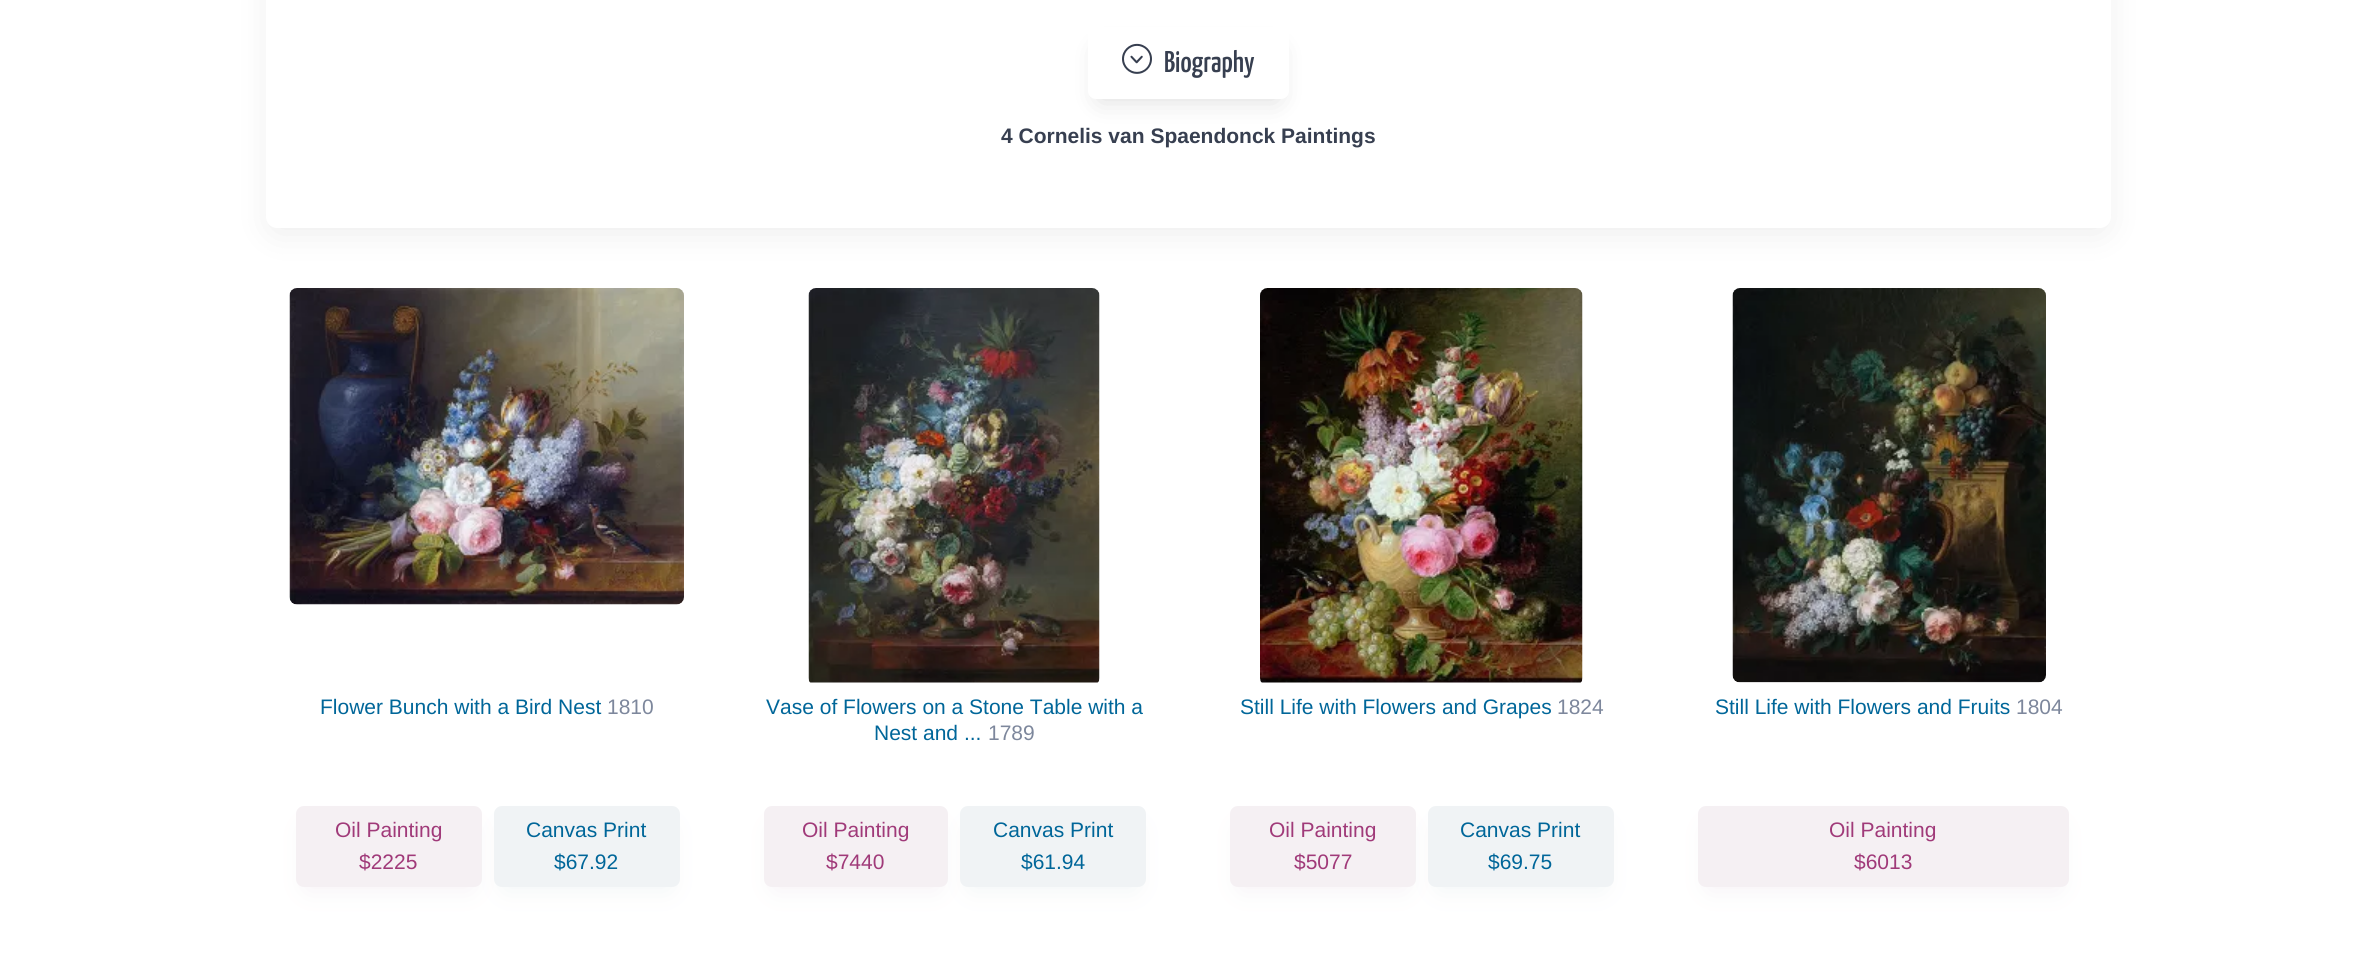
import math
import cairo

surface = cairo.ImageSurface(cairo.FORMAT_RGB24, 2376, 974)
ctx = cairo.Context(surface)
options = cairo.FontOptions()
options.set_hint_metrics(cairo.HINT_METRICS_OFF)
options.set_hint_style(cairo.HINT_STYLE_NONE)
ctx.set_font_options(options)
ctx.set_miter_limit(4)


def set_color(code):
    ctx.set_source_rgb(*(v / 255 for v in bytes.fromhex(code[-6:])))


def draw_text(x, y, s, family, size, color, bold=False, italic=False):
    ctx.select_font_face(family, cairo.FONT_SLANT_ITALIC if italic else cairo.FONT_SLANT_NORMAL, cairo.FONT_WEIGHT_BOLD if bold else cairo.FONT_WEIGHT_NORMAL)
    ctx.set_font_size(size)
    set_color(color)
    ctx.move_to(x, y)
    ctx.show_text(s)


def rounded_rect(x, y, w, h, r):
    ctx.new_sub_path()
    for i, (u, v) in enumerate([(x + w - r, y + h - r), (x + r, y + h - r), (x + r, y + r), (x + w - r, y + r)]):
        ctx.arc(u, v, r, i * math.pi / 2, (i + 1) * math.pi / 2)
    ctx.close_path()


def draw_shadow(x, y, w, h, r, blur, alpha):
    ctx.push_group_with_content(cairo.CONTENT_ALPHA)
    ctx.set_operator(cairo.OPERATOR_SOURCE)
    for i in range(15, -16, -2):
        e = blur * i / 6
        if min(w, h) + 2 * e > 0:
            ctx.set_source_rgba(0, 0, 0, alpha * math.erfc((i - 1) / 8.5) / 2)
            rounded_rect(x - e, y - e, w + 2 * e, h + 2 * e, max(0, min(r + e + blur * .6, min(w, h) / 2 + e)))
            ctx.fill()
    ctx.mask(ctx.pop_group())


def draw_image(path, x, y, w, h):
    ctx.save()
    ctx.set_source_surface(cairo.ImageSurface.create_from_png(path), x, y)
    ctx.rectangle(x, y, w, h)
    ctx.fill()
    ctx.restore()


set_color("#ffffff")
ctx.paint()
set_color("#000000")
draw_shadow(275, -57, 1827, 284, 1.5, 18.5, 0.1)
set_color("#ffffff")
rounded_rect(266, -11, 1845, 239, 11)
ctx.fill()
set_color("#000000")
draw_shadow(1100, 51, 177, 48, 0, 13.5, 0.15)
set_color("#ffffff")
rounded_rect(1088, 27, 201, 72, 8)
ctx.fill()
draw_image("assets/img1.png", 1122, 43, 30, 31)
draw_text(1164, 72, "Biography", "Yanone Kaffeesatz Medium", 30, "#373f50")
draw_text(1001, 143, "4 Cornelis van Spaendonck Paintings", "Liberation Sans", 21, "#373f50", bold=True)
draw_image("assets/img2.png", 289, 288, 395, 317)
draw_text(320, 714, "Flower Bunch with a Bird Nest", "Liberation Sans", 21, "#006699")
draw_text(607, 714, "1810", "Liberation Sans", 21, "#7d879c")
set_color("#f5f0f3")
draw_shadow(308, 830, 162, 57, 0, 13.5, 1)
set_color("#f5f0f3")
rounded_rect(296, 806, 186, 81, 8)
ctx.fill()
draw_text(335, 837, "Oil Painting", "Liberation Sans", 21, "#a03a79")
draw_text(359, 869, "$2225", "Liberation Sans", 21, "#a03a79")
set_color("#f0f3f5")
draw_shadow(506, 830, 162, 57, 0, 13.5, 1)
set_color("#f0f3f5")
rounded_rect(494, 806, 186, 81, 8)
ctx.fill()
draw_text(526, 837, "Canvas Print", "Liberation Sans", 21, "#006699")
draw_text(554, 869, "$67.92", "Liberation Sans", 21, "#006699")
draw_image("assets/img3.png", 808, 288, 292, 395)
draw_text(766, 714, "Vase of Flowers on a Stone Table with a", "Liberation Sans", 21, "#006699")
draw_text(874, 740, "Nest and ...", "Liberation Sans", 21, "#006699")
draw_text(988, 740, "1789", "Liberation Sans", 21, "#7d879c")
set_color("#f5f0f3")
draw_shadow(776, 830, 160, 57, 0, 13.5, 1)
set_color("#f5f0f3")
rounded_rect(764, 806, 184, 81, 8)
ctx.fill()
draw_text(802, 837, "Oil Painting", "Liberation Sans", 21, "#a03a79")
draw_text(826, 869, "$7440", "Liberation Sans", 21, "#a03a79")
set_color("#f0f3f5")
draw_shadow(972, 830, 162, 57, 0, 13.5, 1)
set_color("#f0f3f5")
rounded_rect(960, 806, 186, 81, 8)
ctx.fill()
draw_text(993, 837, "Canvas Print", "Liberation Sans", 21, "#006699")
draw_text(1021, 869, "$61.94", "Liberation Sans", 21, "#006699")
draw_image("assets/img4.png", 1260, 288, 323, 395)
draw_text(1240, 714, "Still Life with Flowers and Grapes", "Liberation Sans", 21, "#006699")
draw_text(1557, 714, "1824", "Liberation Sans", 21, "#7d879c")
set_color("#f5f0f3")
draw_shadow(1242, 830, 162, 57, 0, 13.5, 1)
set_color("#f5f0f3")
rounded_rect(1230, 806, 186, 81, 8)
ctx.fill()
draw_text(1269, 837, "Oil Painting", "Liberation Sans", 21, "#a03a79")
draw_text(1294, 869, "$5077", "Liberation Sans", 21, "#a03a79")
set_color("#f0f3f5")
draw_shadow(1440, 830, 162, 57, 0, 13.5, 1)
set_color("#f0f3f5")
rounded_rect(1428, 806, 186, 81, 8)
ctx.fill()
draw_text(1460, 837, "Canvas Print", "Liberation Sans", 21, "#006699")
draw_text(1488, 869, "$69.75", "Liberation Sans", 21, "#006699")
draw_image("assets/img5.png", 1732, 288, 314, 395)
draw_text(1715, 714, "Still Life with Flowers and Fruits", "Liberation Sans", 21, "#006699")
draw_text(2016, 714, "1804", "Liberation Sans", 21, "#7d879c")
set_color("#f5f0f3")
draw_shadow(1710, 830, 347, 57, 0, 13.5, 1)
set_color("#f5f0f3")
rounded_rect(1698, 806, 371, 81, 8)
ctx.fill()
draw_text(1829, 837, "Oil Painting", "Liberation Sans", 21, "#a03a79")
draw_text(1854, 869, "$6013", "Liberation Sans", 21, "#a03a79")
surface.write_to_png("output.png")
